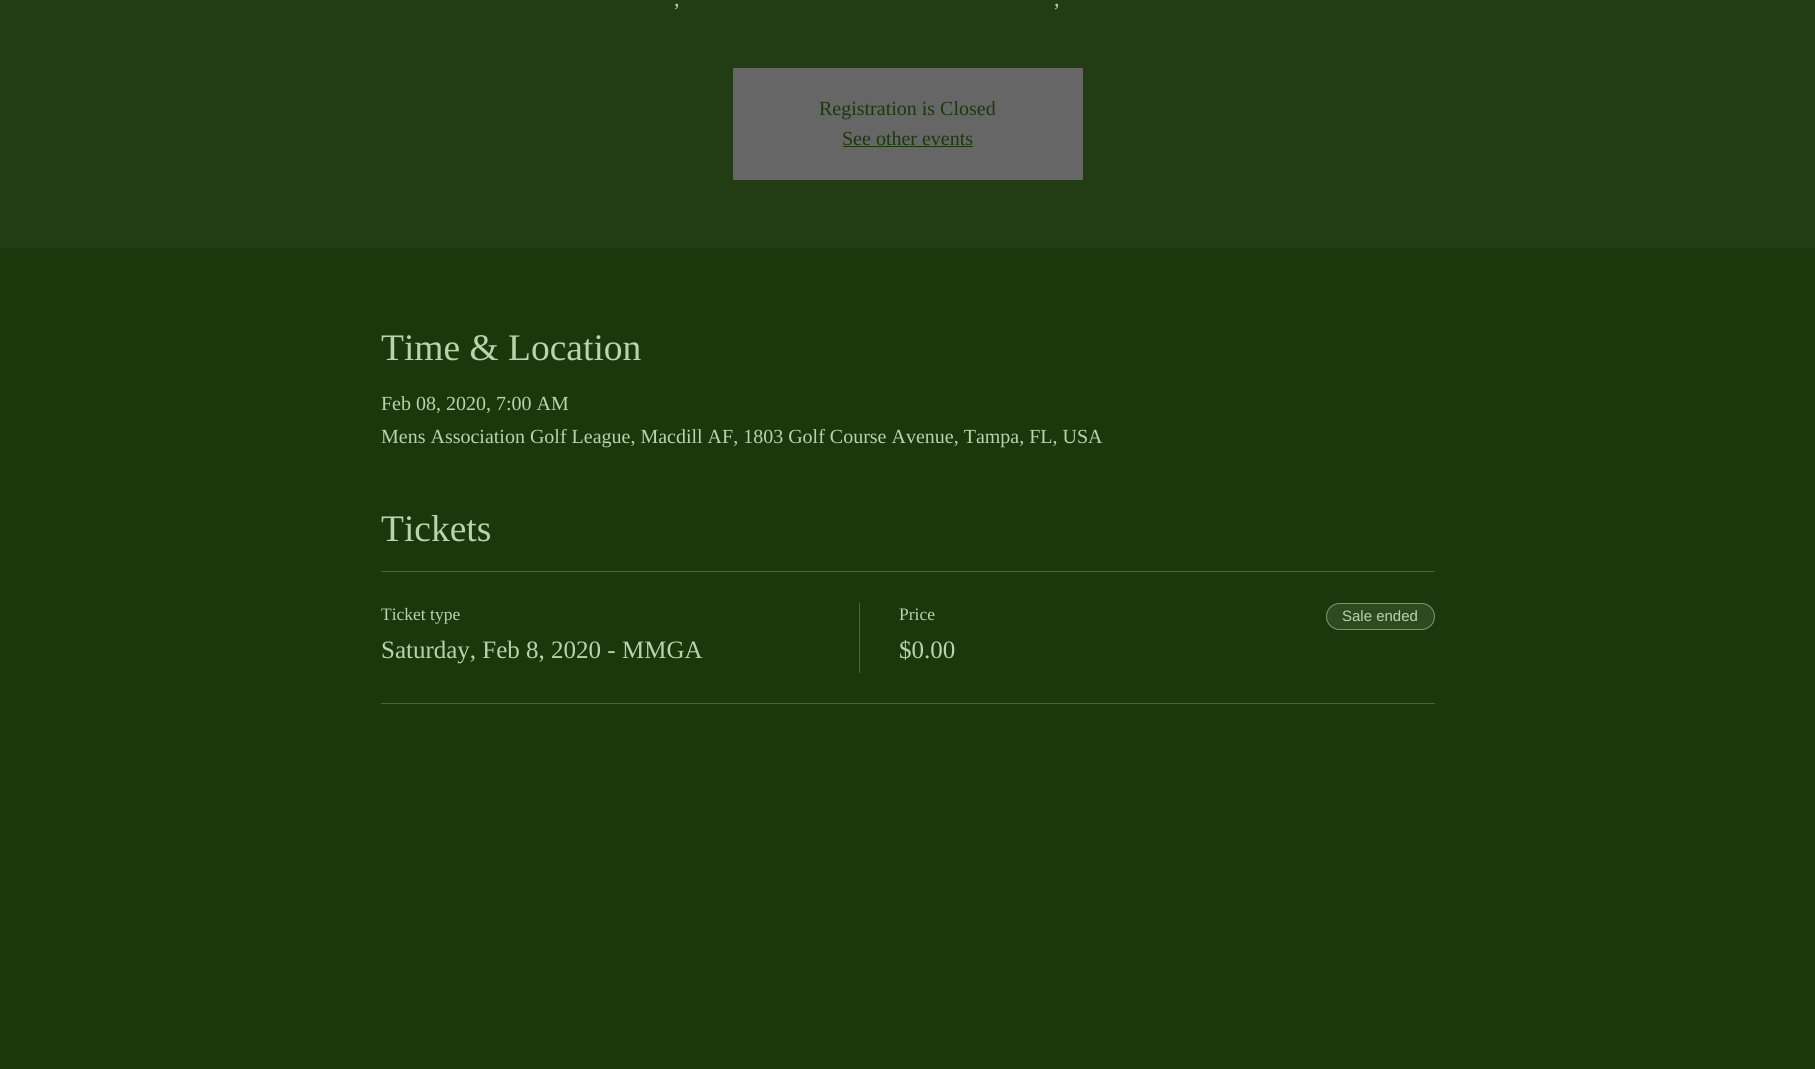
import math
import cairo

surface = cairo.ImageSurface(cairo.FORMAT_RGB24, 1815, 1069)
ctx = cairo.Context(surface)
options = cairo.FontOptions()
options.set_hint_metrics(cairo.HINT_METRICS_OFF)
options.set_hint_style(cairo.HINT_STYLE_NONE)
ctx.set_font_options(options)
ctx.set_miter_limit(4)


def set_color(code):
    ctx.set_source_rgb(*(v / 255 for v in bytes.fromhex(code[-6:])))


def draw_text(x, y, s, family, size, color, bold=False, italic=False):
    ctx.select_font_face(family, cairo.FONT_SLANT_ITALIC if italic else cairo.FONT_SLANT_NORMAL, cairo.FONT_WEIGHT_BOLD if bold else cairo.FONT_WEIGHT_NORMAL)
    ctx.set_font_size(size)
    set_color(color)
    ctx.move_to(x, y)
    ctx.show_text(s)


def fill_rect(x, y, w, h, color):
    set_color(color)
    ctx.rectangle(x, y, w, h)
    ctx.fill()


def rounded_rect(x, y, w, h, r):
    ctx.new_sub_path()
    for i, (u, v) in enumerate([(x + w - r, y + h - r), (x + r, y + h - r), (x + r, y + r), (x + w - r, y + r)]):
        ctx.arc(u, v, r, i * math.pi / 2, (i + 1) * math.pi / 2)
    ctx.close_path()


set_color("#1a380a")
ctx.paint()
fill_rect(0, 0, 1815, 248, "#223d13")
draw_text(674, 6, ",", "Liberation Serif", 22, "#b9d4aa")
draw_text(1054, 6, ",", "Liberation Serif", 22, "#b9d4aa")
fill_rect(733, 68, 350, 112, "#666666")
draw_text(819, 115, "Registration is Closed", "Liberation Serif", 20, "#1a380a")
draw_text(842, 145, "See other events", "Liberation Serif", 20, "#1a380a")
fill_rect(843, 146, 130, 1, "#1a380a")
draw_text(381, 360, "Time & Location", "Liberation Serif", 37.5, "#b9d4aa")
draw_text(381, 410, "Feb 08, 2020, 7:00 AM", "Liberation Serif", 20, "#b9d4aa")
draw_text(381, 443, "Mens Association Golf League, Macdill AF, 1803 Golf Course Avenue, Tampa, FL, USA", "Liberation Serif", 20, "#b9d4aa")
draw_text(381, 541, "Tickets", "Liberation Serif", 37.5, "#b9d4aa")
fill_rect(381, 571, 1054, 1, "#4a673a")
fill_rect(381, 703, 1054, 1, "#4a673a")
draw_text(381, 620, "Ticket type", "Liberation Serif", 17.5, "#b9d4aa")
draw_text(381, 658, "Saturday, Feb 8, 2020 - MMGA", "Liberation Serif", 25, "#b9d4aa")
fill_rect(859, 603, 1, 70, "#4a673a")
draw_text(899, 620, "Price", "Liberation Serif", 17.5, "#b9d4aa")
draw_text(899, 658, "$0.00", "Liberation Serif", 25, "#b9d4aa")
set_color("#2d4b1d")
rounded_rect(1326, 603, 109, 27, 13.5)
ctx.fill()
rounded_rect(1326.5, 603.5, 108, 26, 13)
ctx.set_source_rgba(1, 1, 1, 0.4)
ctx.set_line_width(1)
ctx.stroke()
draw_text(1342, 621, "Sale ended", "Liberation Sans", 15, "#b9d4aa")
surface.write_to_png("output.png")
